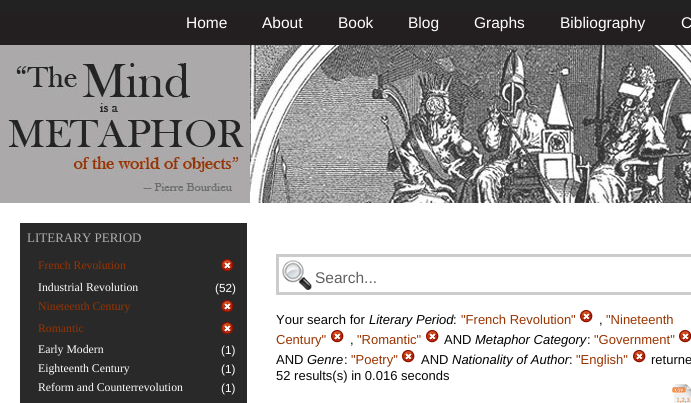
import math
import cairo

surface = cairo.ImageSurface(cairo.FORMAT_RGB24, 691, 403)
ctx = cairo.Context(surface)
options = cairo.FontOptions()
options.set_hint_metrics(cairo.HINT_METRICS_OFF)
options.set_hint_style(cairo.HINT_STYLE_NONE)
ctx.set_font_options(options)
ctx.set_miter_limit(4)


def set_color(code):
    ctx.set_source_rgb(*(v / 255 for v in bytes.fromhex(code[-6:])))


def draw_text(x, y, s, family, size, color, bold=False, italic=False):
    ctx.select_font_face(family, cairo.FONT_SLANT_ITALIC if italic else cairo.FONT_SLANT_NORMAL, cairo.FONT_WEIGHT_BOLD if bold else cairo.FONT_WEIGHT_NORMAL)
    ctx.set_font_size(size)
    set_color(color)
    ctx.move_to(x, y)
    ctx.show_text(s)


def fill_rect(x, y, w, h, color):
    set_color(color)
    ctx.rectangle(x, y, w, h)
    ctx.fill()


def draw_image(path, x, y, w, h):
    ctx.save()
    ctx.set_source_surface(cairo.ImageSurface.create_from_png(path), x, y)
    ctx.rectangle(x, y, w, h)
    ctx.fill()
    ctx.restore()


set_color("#222222")
ctx.paint()
fill_rect(0, 13, 691, 32, "#231f20")
draw_text(186, 28, "Home", "Liberation Sans", 15.5, "#ffffff")
draw_text(262, 28, "About", "Liberation Sans", 15.5, "#ffffff")
draw_text(338, 28, "Book", "Liberation Sans", 15.5, "#ffffff")
draw_text(408, 28, "Blog", "Liberation Sans", 15.5, "#ffffff")
draw_text(474, 28, "Graphs", "Liberation Sans", 15.5, "#ffffff")
draw_text(560, 28, "Bibliography", "Liberation Sans", 15.5, "#ffffff")
draw_text(681, 28, "C", "Liberation Sans", 15.5, "#ffffff")
draw_image("assets/img1.png", 0, 45, 691, 158)
fill_rect(0, 203, 691, 200, "#ffffff")
fill_rect(20, 223, 227, 180, "#292929")
draw_text(27, 242, "LITERARY PERIOD", "Liberation Serif", 13, "#b0b0b0")
draw_text(38, 269, "French Revolution", "Liberation Serif", 11.75, "#993300")
draw_image("assets/img2.png", 221, 259, 13, 13)
draw_text(38, 291, "Industrial Revolution", "Liberation Serif", 11.75, "#ffffff")
draw_text(215, 292, "(52)", "Liberation Sans", 11.75, "#ffffff")
draw_text(38, 310, "Nineteenth Century", "Liberation Serif", 11.75, "#993300")
draw_image("assets/img2.png", 221, 300, 13, 13)
draw_text(38, 332, "Romantic", "Liberation Serif", 11.75, "#993300")
draw_image("assets/img2.png", 221, 322, 13, 13)
draw_text(38, 353, "Early Modern", "Liberation Serif", 11.75, "#ffffff")
draw_text(221, 354, "(1)", "Liberation Sans", 11.75, "#ffffff")
draw_text(38, 372, "Eighteenth Century", "Liberation Serif", 11.75, "#ffffff")
draw_text(221, 373, "(1)", "Liberation Sans", 11.75, "#ffffff")
draw_text(38, 391, "Reform and Counterrevolution", "Liberation Serif", 11.75, "#ffffff")
draw_text(221, 392, "(1)", "Liberation Sans", 11.75, "#ffffff")
draw_image("assets/img3.png", 282, 260, 30, 30)
ctx.rectangle(277.5, 255.5, 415, 38)
set_color("#cccccc")
ctx.set_line_width(3)
ctx.stroke()
draw_text(315, 283, "Search...", "Liberation Sans", 15.5, "#616161")
draw_text(276, 324, "Your search for", "Liberation Sans", 13, "#080808")
draw_text(369, 324, "Literary Period", "Liberation Sans", 13, "#000000", italic=True)
draw_text(453, 324, ":", "Liberation Sans", 13, "#080808")
draw_text(461, 324, "\"French Revolution\"", "Liberation Sans", 13, "#993300")
draw_image("assets/img4.png", 580, 310, 13, 13)
draw_text(599, 324, ",", "Liberation Sans", 13, "#080808")
draw_text(606, 324, "\"Nineteenth", "Liberation Sans", 13, "#993300")
draw_text(276, 344, "Century\"", "Liberation Sans", 13, "#993300")
draw_image("assets/img4.png", 331, 330, 13, 13)
draw_text(350, 344, ",", "Liberation Sans", 13, "#080808")
draw_text(357, 344, "\"Romantic\"", "Liberation Sans", 13, "#993300")
draw_image("assets/img4.png", 426, 330, 13, 13)
draw_text(444, 344, "AND", "Liberation Sans", 13, "#080808")
draw_text(475, 344, "Metaphor Category", "Liberation Sans", 13, "#000000", italic=True)
draw_text(587, 344, ":", "Liberation Sans", 13, "#080808")
draw_text(594, 344, "\"Government\"", "Liberation Sans", 13, "#993300")
draw_image("assets/img5.png", 679, 330, 12, 13)
draw_text(276, 364, "AND", "Liberation Sans", 13, "#080808")
draw_text(307, 364, "Genre", "Liberation Sans", 13, "#000000", italic=True)
draw_text(344, 364, ":", "Liberation Sans", 13, "#080808")
draw_text(351, 364, "\"Poetry\"", "Liberation Sans", 13, "#993300")
draw_image("assets/img4.png", 402, 350, 13, 13)
draw_text(421, 364, "AND", "Liberation Sans", 13, "#080808")
draw_text(452, 364, "Nationality of Author", "Liberation Sans", 13, "#000000", italic=True)
draw_text(569, 364, ":", "Liberation Sans", 13, "#080808")
draw_text(576, 364, "\"English\"", "Liberation Sans", 13, "#993300")
draw_image("assets/img4.png", 633, 350, 13, 13)
draw_text(651, 364, "returne", "Liberation Sans", 13, "#080808")
draw_text(276, 380, "52 results(s) in 0.016 seconds", "Liberation Sans", 13, "#080808")
draw_image("assets/img6.png", 672, 384, 19, 19)
surface.write_to_png("output.png")
